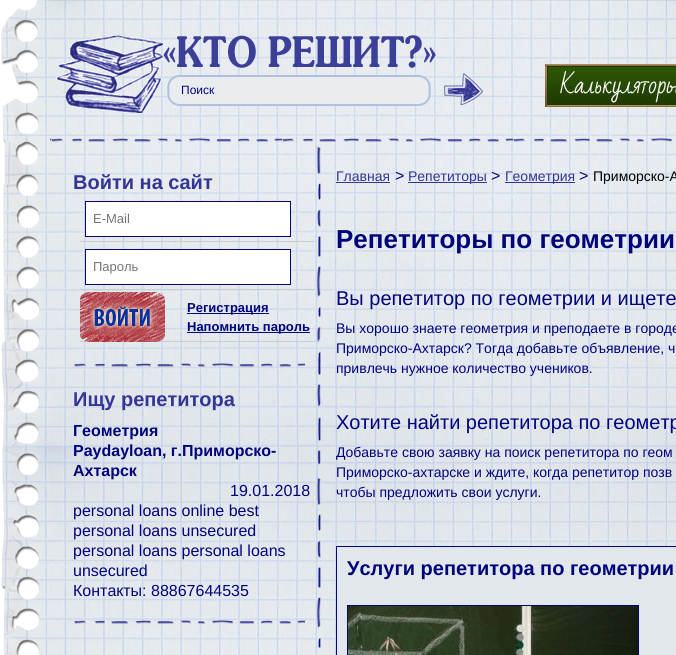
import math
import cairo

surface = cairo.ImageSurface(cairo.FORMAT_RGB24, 676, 655)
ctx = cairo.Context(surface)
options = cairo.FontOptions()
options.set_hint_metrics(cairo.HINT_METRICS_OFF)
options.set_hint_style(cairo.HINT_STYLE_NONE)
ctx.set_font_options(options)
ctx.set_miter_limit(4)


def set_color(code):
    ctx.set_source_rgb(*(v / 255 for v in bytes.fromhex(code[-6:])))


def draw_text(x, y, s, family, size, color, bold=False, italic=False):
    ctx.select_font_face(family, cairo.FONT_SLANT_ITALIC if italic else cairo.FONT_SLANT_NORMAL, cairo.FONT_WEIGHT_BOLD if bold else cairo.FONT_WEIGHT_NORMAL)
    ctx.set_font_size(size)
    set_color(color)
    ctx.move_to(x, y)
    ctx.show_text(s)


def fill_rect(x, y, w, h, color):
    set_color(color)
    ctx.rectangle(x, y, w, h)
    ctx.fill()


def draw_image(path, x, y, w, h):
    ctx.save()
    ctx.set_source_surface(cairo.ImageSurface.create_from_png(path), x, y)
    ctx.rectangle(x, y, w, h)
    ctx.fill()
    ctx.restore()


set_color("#ffffff")
ctx.paint()
draw_image("assets/img1.png", 45, 0, 631, 655)
draw_image("assets/img2.png", 1, 0, 44, 655)
draw_image("assets/img3.png", 56, 35, 380, 78)
draw_image("assets/img4.png", 167, 75, 264, 31)
draw_text(181, 94, "Поиск", "Liberation Sans", 12, "#01047b")
draw_image("assets/img5.png", 444, 73, 39, 32)
draw_image("assets/img6.png", 545, 64, 131, 43)
draw_image("assets/img7.png", 50, 138, 622, 4)
draw_image("assets/img8.png", 317, 146, 4, 502)
draw_image("assets/img9.png", 74, 363, 231, 4)
draw_text(73, 189, "Войти на сайт", "Liberation Sans", 20, "#333694", bold=True)
fill_rect(80, 241, 235, 1, "#cccccc")
set_color("#ffffff")
ctx.rectangle(85.5, 201.5, 205, 35)
ctx.fill_preserve()
set_color("#01047b")
ctx.set_line_width(1)
ctx.stroke()
draw_text(93, 223, "E-Mail", "Liberation Sans", 13, "#757575")
fill_rect(80, 289, 235, 1, "#cccccc")
set_color("#ffffff")
ctx.rectangle(85.5, 249.5, 205, 35)
ctx.fill_preserve()
set_color("#01047b")
ctx.stroke()
draw_text(93, 271, "Пароль", "Liberation Sans", 13, "#757575")
fill_rect(80, 341, 235, 1, "#cccccc")
draw_image("assets/img10.png", 80, 292, 85, 50)
fill_rect(187, 313, 82, 1, "#01047b")
draw_text(187, 312, "Регистрация", "Liberation Sans", 13, "#01047b", bold=True)
fill_rect(187, 332, 123, 1, "#01047b")
draw_text(187, 331, "Напомнить пароль", "Liberation Sans", 13, "#01047b", bold=True)
draw_image("assets/img11.png", 74, 620, 231, 4)
draw_text(73, 406, "Ищу репетитора", "Liberation Sans", 20, "#333694", bold=True)
draw_text(73, 436, "Геометрия", "Liberation Sans", 16, "#01047b", bold=True)
draw_text(73, 456, "Paydayloan, г.Приморско-", "Liberation Sans", 16, "#01047b", bold=True)
draw_text(73, 476, "Ахтарск", "Liberation Sans", 16, "#01047b", bold=True)
draw_text(230, 496, "19.01.2018", "Liberation Sans", 16, "#01047b")
draw_text(73, 516, "personal loans online best", "Liberation Sans", 16, "#01047b")
draw_text(73, 536, "personal loans unsecured", "Liberation Sans", 16, "#01047b")
draw_text(73, 556, "personal loans personal loans", "Liberation Sans", 16, "#01047b")
draw_text(73, 576, "unsecured", "Liberation Sans", 16, "#01047b")
draw_text(73, 596, "Контакты: 88867644535", "Liberation Sans", 16, "#01047b")
draw_text(336, 181, "Главная", "Liberation Sans", 14, "#333694")
fill_rect(336, 182, 54, 1, "#333694")
draw_text(395, 181, ">", "Liberation Sans", 16, "#01047b")
fill_rect(408, 182, 79, 1, "#333694")
draw_text(408, 181, "Репетиторы", "Liberation Sans", 14, "#333694")
draw_text(491, 181, ">", "Liberation Sans", 16, "#01047b")
fill_rect(505, 182, 70, 1, "#333694")
draw_text(505, 181, "Геометрия", "Liberation Sans", 14, "#333694")
draw_text(579, 181, ">", "Liberation Sans", 16, "#01047b")
draw_text(593, 181, "Приморско-А", "Liberation Sans", 14, "#000000")
draw_text(336, 248, "Репетиторы по геометрии", "Liberation Sans", 26, "#01047b", bold=True)
draw_text(336, 305, "Вы репетитор по геометрии и ищете", "Liberation Sans", 20, "#01047b")
draw_text(336, 333, "Вы хорошо знаете геометрия и преподаете в городе", "Liberation Sans", 14, "#01047b")
draw_text(336, 353, "Приморско-Ахтарск? Тогда добавьте объявление, ч", "Liberation Sans", 14, "#01047b")
draw_text(336, 373, "привлечь нужное количество учеников.", "Liberation Sans", 14, "#01047b")
draw_text(336, 429, "Хотите найти репетитора по геометр", "Liberation Sans", 20, "#01047b")
draw_text(336, 457, "Добавьте свою заявку на поиск репетитора по геом", "Liberation Sans", 14, "#01047b")
draw_text(336, 477, "Приморско-ахтарске и ждите, когда репетитор позв", "Liberation Sans", 14, "#01047b")
draw_text(336, 497, "чтобы предложить свои услуги.", "Liberation Sans", 14, "#01047b")
set_color("#e2e7eb")
ctx.rectangle(336.5, 546.5, 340, 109)
ctx.fill_preserve()
set_color("#01047b")
ctx.stroke()
draw_text(347, 575, "Услуги репетитора по геометрии", "Liberation Sans", 20, "#01047b", bold=True)
ctx.rectangle(347.5, 605.5, 291, 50)
ctx.stroke()
draw_image("assets/img12.png", 348, 606, 290, 49)
surface.write_to_png("output.png")
